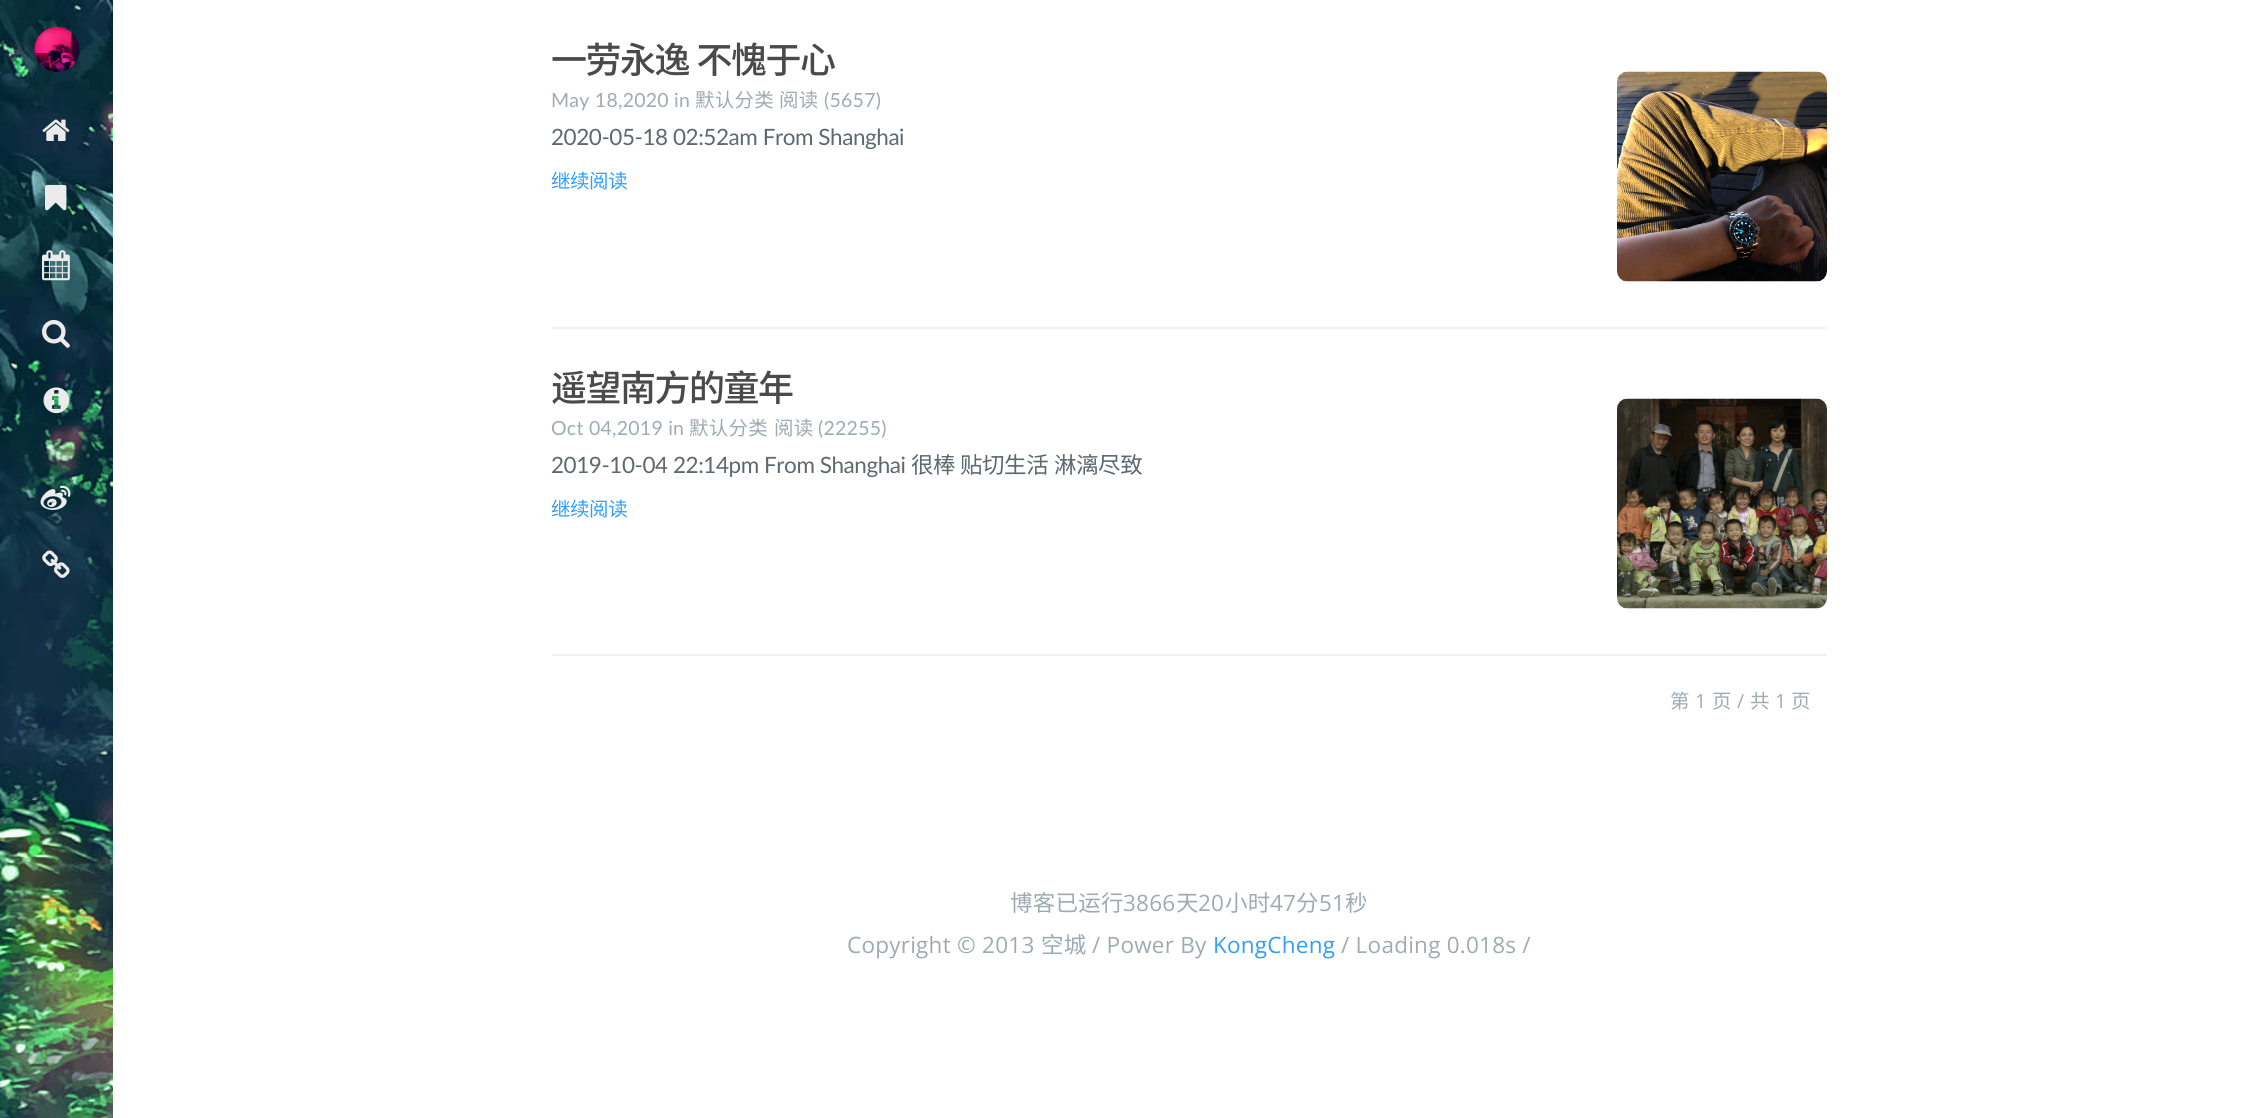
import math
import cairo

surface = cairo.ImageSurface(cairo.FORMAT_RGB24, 2265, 1118)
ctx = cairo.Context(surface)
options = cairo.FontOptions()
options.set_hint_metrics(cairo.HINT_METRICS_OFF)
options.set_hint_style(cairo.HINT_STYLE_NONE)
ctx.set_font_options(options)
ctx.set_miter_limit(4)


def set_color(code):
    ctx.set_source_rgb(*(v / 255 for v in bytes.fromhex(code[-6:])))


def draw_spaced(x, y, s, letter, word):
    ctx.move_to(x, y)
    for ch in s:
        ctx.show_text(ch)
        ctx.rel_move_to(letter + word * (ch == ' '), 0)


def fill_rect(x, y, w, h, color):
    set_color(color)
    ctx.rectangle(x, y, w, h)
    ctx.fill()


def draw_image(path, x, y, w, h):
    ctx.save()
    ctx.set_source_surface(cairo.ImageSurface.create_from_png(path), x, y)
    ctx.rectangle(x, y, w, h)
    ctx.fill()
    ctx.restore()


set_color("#ffffff")
ctx.paint()
draw_image("assets/img1.png", 0, 0, 113, 1118)
draw_image("assets/img2.png", 34, 27, 46, 45)
draw_image("assets/img3.png", 42, 119, 28, 22)
draw_image("assets/img4.png", 45, 184, 22, 27)
draw_image("assets/img5.png", 42, 250, 28, 31)
draw_image("assets/img6.png", 42, 319, 28, 29)
draw_image("assets/img7.png", 43, 387, 27, 27)
draw_image("assets/img8.png", 40, 485, 31, 25)
draw_image("assets/img9.png", 42, 550, 28, 28)
fill_rect(552, 327, 1275, 2, "#eef2f8")
ctx.select_font_face("Noto Sans SC Medium")
ctx.set_font_size(36)
set_color("#4a4a4a")
draw_spaced(551, 73, "一劳永逸 不愧于心", -1.5, 1)
ctx.select_font_face("Lato")
ctx.set_font_size(19.5)
set_color("#9eabb3")
draw_spaced(551, 107, "May 18,2020 in", 0.25, 0)
ctx.select_font_face("Noto Sans CJK SC")
draw_spaced(695, 107, "默认分类", 0.25, 0)
draw_spaced(779, 107, "阅读", 0.25, 0)
ctx.select_font_face("Lato")
draw_spaced(824, 107, "(5657)", 0.25, 0)
ctx.set_font_size(22.5)
set_color("#5d686f")
draw_spaced(551, 145, "2020-05-18 02:52am From Shanghai", -0.45, 0)
ctx.select_font_face("Noto Sans CJK SC")
ctx.set_font_size(19.5)
set_color("#349ef3")
draw_spaced(551, 188, "继续阅读", -0.45, 0)
draw_image("assets/img10.png", 1617, 71, 210, 211)
fill_rect(552, 654, 1275, 2, "#eef2f8")
ctx.select_font_face("Noto Sans SC Medium")
ctx.set_font_size(36)
set_color("#4a4a4a")
draw_spaced(551, 401, "遥望南方的童年", -1.5, 0)
ctx.select_font_face("Lato")
ctx.set_font_size(19.5)
set_color("#9eabb3")
draw_spaced(551, 435, "Oct 04,2019 in", 0.25, 0)
ctx.select_font_face("Noto Sans CJK SC")
draw_spaced(689, 435, "默认分类", 0.25, 0)
draw_spaced(774, 435, "阅读", 0.25, 0)
ctx.select_font_face("Lato")
draw_spaced(818, 435, "(22255)", 0.25, 0)
ctx.set_font_size(22.5)
set_color("#5d686f")
draw_spaced(551, 473, "2019-10-04 22:14pm From Shanghai", -0.45, 0)
ctx.select_font_face("Noto Sans SC")
draw_spaced(911, 473, "很棒", -0.45, 0)
draw_spaced(960, 473, "贴切生活", -0.45, 0)
draw_spaced(1054, 473, "淋漓尽致", -0.45, 0)
ctx.select_font_face("Noto Sans CJK SC")
ctx.set_font_size(19.5)
set_color("#349ef3")
draw_spaced(551, 516, "继续阅读", -0.45, 0)
draw_image("assets/img11.png", 1617, 398, 210, 211)
set_color("#9eabb3")
draw_spaced(1670, 708, "第", 0.25, 0)
ctx.select_font_face("Open Sans")
draw_spaced(1695, 708, "1", 0.25, 0)
ctx.select_font_face("Noto Sans CJK SC")
draw_spaced(1712, 708, "页", 0.25, 0)
ctx.select_font_face("Open Sans")
draw_spaced(1737, 708, "/", 0.25, 0)
ctx.select_font_face("Noto Sans CJK SC")
draw_spaced(1750, 708, "共", 0.25, 0)
ctx.select_font_face("Open Sans")
draw_spaced(1775, 708, "1", 0.25, 0)
ctx.select_font_face("Noto Sans CJK SC")
draw_spaced(1791, 708, "页", 0.25, 0)
ctx.set_font_size(22.5)
draw_spaced(1010, 911, "博客已运行", 0.25, 0)
ctx.select_font_face("Open Sans")
draw_spaced(1123, 911, "3866", 0.25, 0)
ctx.select_font_face("Noto Sans CJK SC")
draw_spaced(1176, 911, "天", 0.25, 0)
ctx.select_font_face("Open Sans")
draw_spaced(1198, 911, "20", 0.25, 0)
ctx.select_font_face("Noto Sans CJK SC")
draw_spaced(1225, 911, "小时", 0.25, 0)
ctx.select_font_face("Open Sans")
draw_spaced(1270, 911, "47", 0.25, 0)
ctx.select_font_face("Noto Sans CJK SC")
draw_spaced(1296, 911, "分", 0.25, 0)
ctx.select_font_face("Open Sans")
draw_spaced(1319, 911, "51", 0.25, 0)
ctx.select_font_face("Noto Sans CJK SC")
draw_spaced(1345, 911, "秒", 0.25, 0)
ctx.select_font_face("Open Sans")
draw_spaced(847, 953, "Copyright © 2013", 0.25, 0)
ctx.select_font_face("Noto Sans CJK SC")
draw_spaced(1041, 953, "空城", 0.25, 0)
ctx.select_font_face("Open Sans")
draw_spaced(1092, 953, "/ Power By", 0.25, 0)
set_color("#349ef3")
draw_spaced(1213, 953, "KongCheng", 0.25, 0)
set_color("#9eabb3")
draw_spaced(1341, 953, "/ Loading 0.018s /", 0.25, 0)
surface.write_to_png("output.png")
